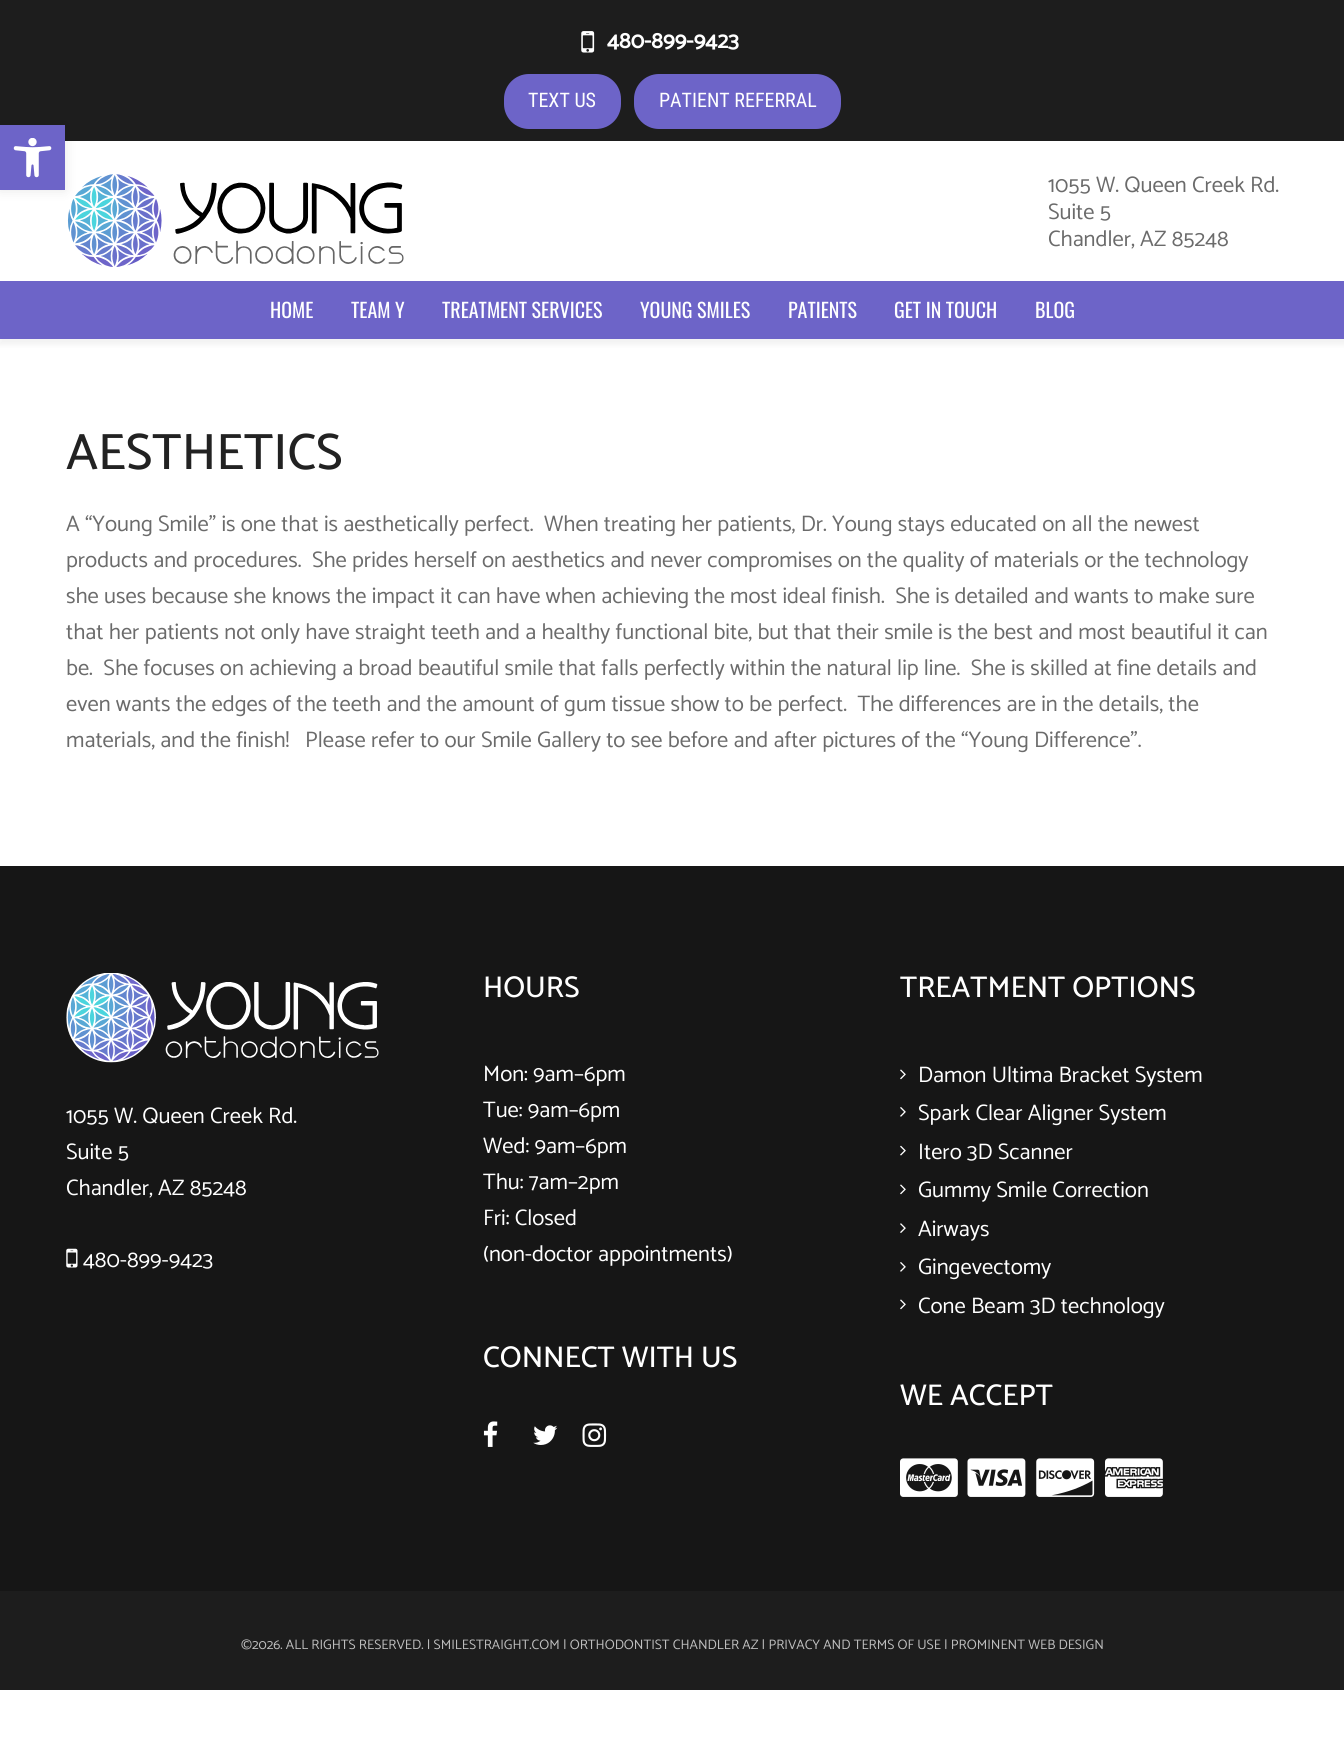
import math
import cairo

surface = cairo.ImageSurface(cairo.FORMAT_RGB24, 1344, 1751)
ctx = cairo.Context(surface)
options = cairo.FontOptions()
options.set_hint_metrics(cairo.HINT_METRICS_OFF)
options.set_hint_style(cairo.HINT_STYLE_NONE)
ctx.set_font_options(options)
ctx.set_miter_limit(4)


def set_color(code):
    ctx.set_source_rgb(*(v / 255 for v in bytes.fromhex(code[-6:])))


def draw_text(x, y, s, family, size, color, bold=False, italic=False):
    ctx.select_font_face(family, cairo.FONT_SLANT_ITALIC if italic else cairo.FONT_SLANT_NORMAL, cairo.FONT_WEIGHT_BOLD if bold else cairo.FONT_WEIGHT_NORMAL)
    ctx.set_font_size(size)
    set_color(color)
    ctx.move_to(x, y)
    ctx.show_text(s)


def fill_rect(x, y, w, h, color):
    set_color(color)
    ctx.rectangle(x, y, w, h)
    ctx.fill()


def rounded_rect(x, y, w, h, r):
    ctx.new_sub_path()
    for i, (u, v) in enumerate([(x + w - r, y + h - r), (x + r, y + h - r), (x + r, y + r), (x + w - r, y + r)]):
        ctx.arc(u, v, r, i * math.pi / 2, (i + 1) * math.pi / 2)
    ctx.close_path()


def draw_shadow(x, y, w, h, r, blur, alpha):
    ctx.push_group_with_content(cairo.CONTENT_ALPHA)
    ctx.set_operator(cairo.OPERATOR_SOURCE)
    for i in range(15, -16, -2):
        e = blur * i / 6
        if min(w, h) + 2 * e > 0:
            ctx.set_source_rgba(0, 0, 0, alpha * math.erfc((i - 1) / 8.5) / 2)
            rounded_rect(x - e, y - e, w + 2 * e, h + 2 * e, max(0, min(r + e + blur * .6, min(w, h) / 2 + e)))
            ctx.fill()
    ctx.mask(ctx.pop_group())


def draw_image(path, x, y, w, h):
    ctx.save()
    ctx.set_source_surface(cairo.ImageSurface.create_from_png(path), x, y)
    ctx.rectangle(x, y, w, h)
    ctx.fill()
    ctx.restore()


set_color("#ffffff")
ctx.paint()
set_color("#000000")
draw_shadow(-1, 140, 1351, 205, 0, 2, 0.05)
fill_rect(0, 0, 1344, 141, "#1d1d1d")
fill_rect(0, 141, 1344, 140, "#ffffff")
draw_image("assets/img3.png", 67, 174, 337, 93)
set_color("#000000")
draw_shadow(0, 125, 65, 65, 0, 6, 0.1)
fill_rect(0, 125, 65, 65, "#6d64c8")
draw_image("assets/img1.png", 13, 138, 39, 40)
draw_image("assets/img2.png", 581, 31, 14, 22)
draw_text(607, 48, "480-899-9423", "Catamaran", 22.5, "#ffffff", bold=True)
set_color("#6d64c8")
rounded_rect(504, 74, 117, 55, 25)
ctx.fill()
draw_text(528, 107, "TEXT US", "Roboto Condensed", 20, "#ffffff")
set_color("#6d64c8")
rounded_rect(634, 74, 207, 55, 25)
ctx.fill()
draw_text(659, 107, "PATIENT REFERRAL", "Roboto Condensed", 20, "#ffffff")
draw_text(1048, 192, "1055 W. Queen Creek Rd.", "Catamaran", 22.5, "#6b6b6b")
draw_text(1048, 219, "Suite 5", "Catamaran", 22.5, "#6b6b6b")
draw_text(1048, 246, "Chandler, AZ 85248", "Catamaran", 22.5, "#6b6b6b")
fill_rect(0, 281, 1344, 58, "#6d64c8")
draw_text(270, 318, "HOME", "Oswald", 20, "#ffffff")
draw_text(351, 318, "TEAM Y", "Oswald", 20, "#ffffff")
draw_text(442, 318, "TREATMENT SERVICES", "Oswald", 20, "#ffffff")
draw_text(640, 318, "YOUNG SMILES", "Oswald", 20, "#ffffff")
draw_text(788, 318, "PATIENTS", "Oswald", 20, "#ffffff")
draw_text(894, 318, "GET IN TOUCH", "Oswald", 20, "#ffffff")
draw_text(1035, 318, "BLOG", "Oswald", 20, "#ffffff")
draw_text(66, 469, "AESTHETICS", "Catamaran Medium", 51.25, "#222222")
draw_text(66, 531, "A “Young Smile” is one that is aesthetically perfect.  When treating her patients, Dr. Young stays educated on all the newest", "Catamaran", 22.5, "#6b6b6b")
draw_text(66, 567, "products and procedures.  She prides herself on aesthetics and never compromises on the quality of materials or the technology", "Catamaran", 22.5, "#6b6b6b")
draw_text(66, 603, "she uses because she knows the impact it can have when achieving the most ideal finish.  She is detailed and wants to make sure", "Catamaran", 22.5, "#6b6b6b")
draw_text(66, 639, "that her patients not only have straight teeth and a healthy functional bite, but that their smile is the best and most beautiful it can", "Catamaran", 22.5, "#6b6b6b")
draw_text(66, 675, "be.  She focuses on achieving a broad beautiful smile that falls perfectly within the natural lip line.  She is skilled at fine details and", "Catamaran", 22.5, "#6b6b6b")
draw_text(66, 711, "even wants the edges of the teeth and the amount of gum tissue show to be perfect.  The differences are in the details, the", "Catamaran", 22.5, "#6b6b6b")
draw_text(66, 747, "materials, and the finish!   Please refer to our Smile Gallery to see before and after pictures of the “Young Difference”.", "Catamaran", 22.5, "#6b6b6b")
fill_rect(0, 866, 1344, 725, "#161616")
draw_image("assets/img4.png", 66, 973, 313, 90)
draw_text(66, 1123, "1055 W. Queen Creek Rd.", "Catamaran", 22.5, "#ffffff")
draw_text(66, 1159, "Suite 5", "Catamaran", 22.5, "#ffffff")
draw_text(66, 1195, "Chandler, AZ 85248", "Catamaran", 22.5, "#ffffff")
draw_image("assets/img5.png", 66, 1248, 12, 20)
draw_text(83, 1267, "480-899-9423", "Catamaran", 22.5, "#ffffff")
draw_text(483, 997, "HOURS", "Catamaran Medium", 30, "#ffffff")
draw_text(483, 1081, "Mon: 9am–6pm", "Catamaran", 22.5, "#ffffff")
draw_text(483, 1117, "Tue: 9am–6pm", "Catamaran", 22.5, "#ffffff")
draw_text(483, 1153, "Wed: 9am–6pm", "Catamaran", 22.5, "#ffffff")
draw_text(483, 1189, "Thu: 7am–2pm", "Catamaran", 22.5, "#ffffff")
draw_text(483, 1225, "Fri: Closed", "Catamaran", 22.5, "#ffffff")
draw_text(483, 1261, "(non-doctor appointments)", "Catamaran", 22.5, "#ffffff")
draw_text(483, 1367, "CONNECT WITH US", "Catamaran Medium", 30, "#ffffff")
draw_image("assets/img6.png", 483, 1421, 15, 26)
draw_image("assets/img7.png", 533, 1425, 25, 20)
draw_image("assets/img8.png", 582, 1423, 25, 24)
draw_text(900, 997, "TREATMENT OPTIONS", "Catamaran Medium", 30, "#ffffff")
draw_image("assets/img9.png", 900, 1069, 6, 11)
draw_text(918, 1082, "Damon Ultima Bracket System", "Catamaran", 22.5, "#ffffff")
draw_image("assets/img10.png", 900, 1107, 6, 10)
draw_text(918, 1120, "Spark Clear Aligner System", "Catamaran", 22.5, "#ffffff")
draw_image("assets/img11.png", 900, 1145, 6, 11)
draw_text(918, 1159, "Itero 3D Scanner", "Catamaran", 22.5, "#ffffff")
draw_image("assets/img9.png", 900, 1184, 6, 11)
draw_text(918, 1197, "Gummy Smile Correction", "Catamaran", 22.5, "#ffffff")
draw_image("assets/img12.png", 900, 1223, 6, 10)
draw_text(918, 1236, "Airways", "Catamaran", 22.5, "#ffffff")
draw_image("assets/img10.png", 900, 1262, 6, 10)
draw_text(918, 1274, "Gingevectomy", "Catamaran", 22.5, "#ffffff")
draw_image("assets/img9.png", 900, 1299, 6, 11)
draw_text(918, 1313, "Cone Beam 3D technology", "Catamaran", 22.5, "#ffffff")
draw_text(900, 1405, "WE ACCEPT", "Catamaran Medium", 30, "#ffffff")
draw_image("assets/img13.png", 900, 1458, 58, 39)
draw_image("assets/img14.png", 967, 1458, 59, 39)
draw_image("assets/img15.png", 1036, 1458, 59, 39)
draw_image("assets/img16.png", 1105, 1458, 58, 39)
fill_rect(0, 1591, 1344, 99, "#1d1d1d")
draw_text(241, 1649, "©2026. ALL RIGHTS RESERVED. | SMILESTRAIGHT.COM | ORTHODONTIST CHANDLER AZ | PRIVACY AND TERMS OF USE | PROMINENT WEB DESIGN", "Catamaran", 13.75, "#c0c0c0")
surface.write_to_png("output.png")
